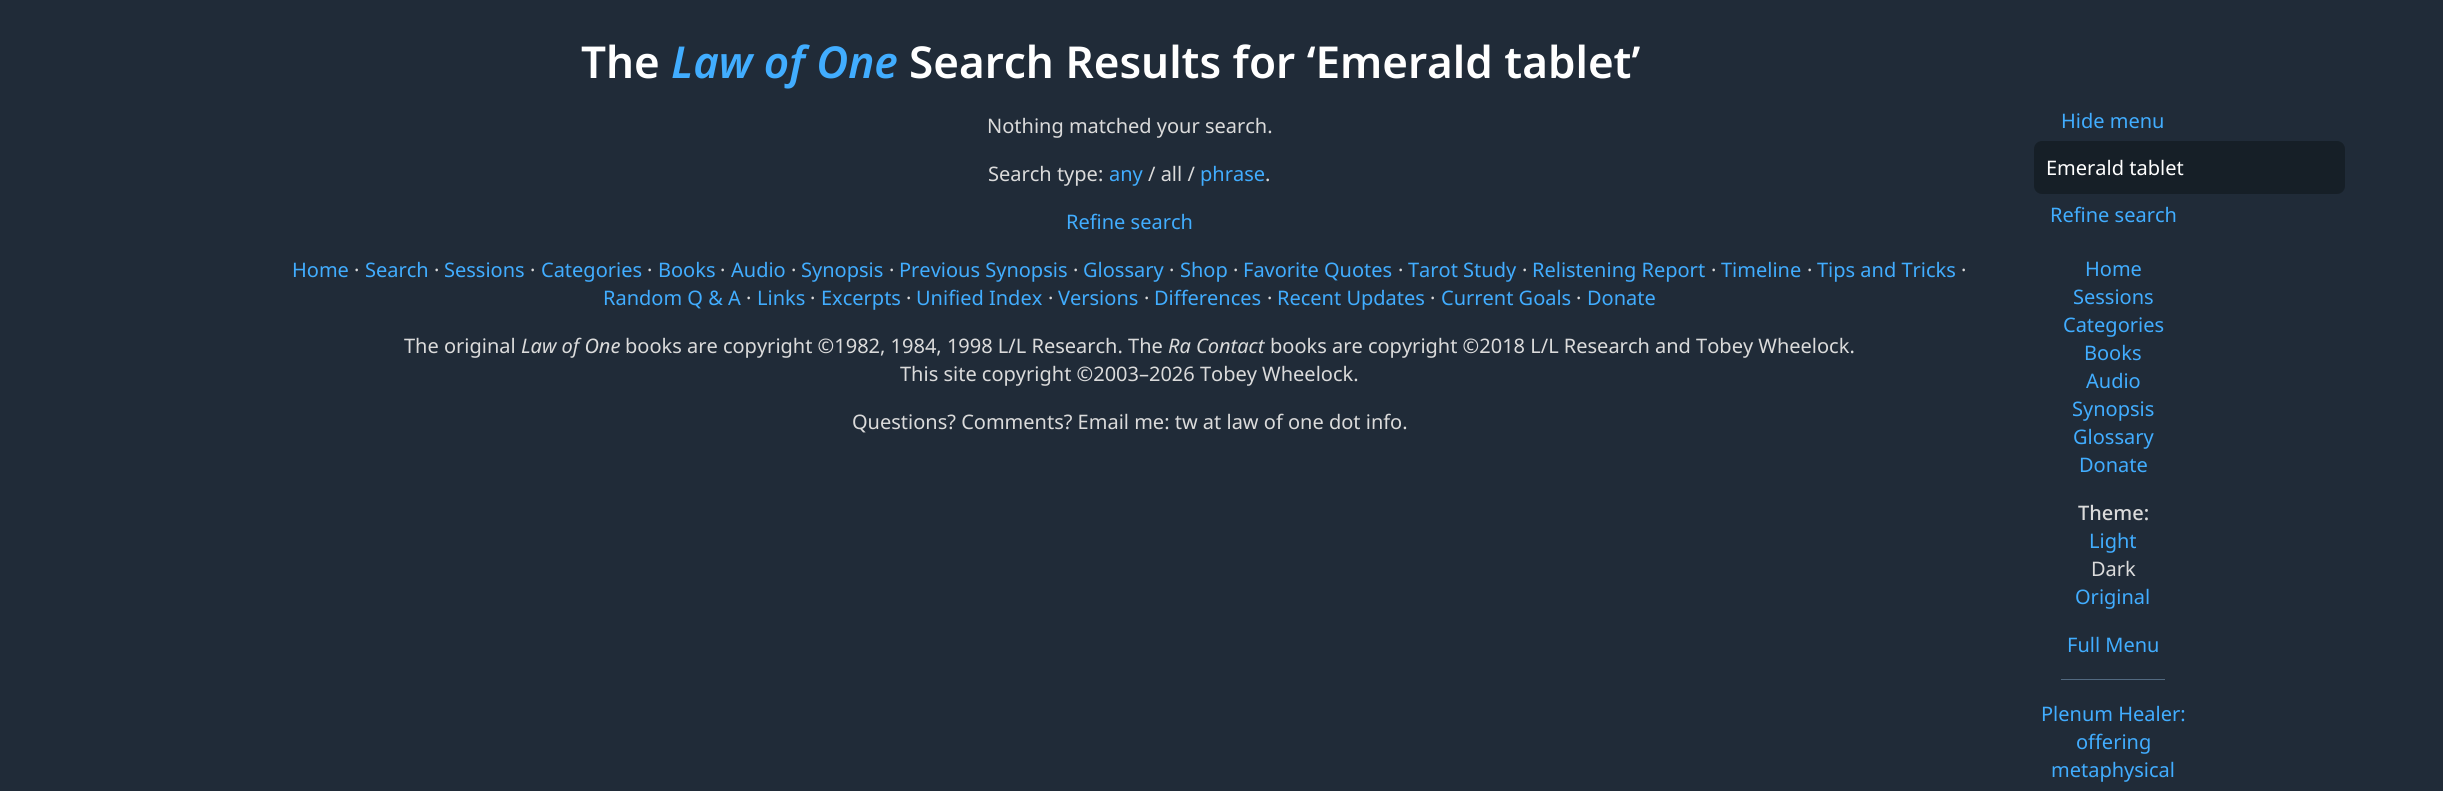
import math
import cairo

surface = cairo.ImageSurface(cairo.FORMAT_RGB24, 2443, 791)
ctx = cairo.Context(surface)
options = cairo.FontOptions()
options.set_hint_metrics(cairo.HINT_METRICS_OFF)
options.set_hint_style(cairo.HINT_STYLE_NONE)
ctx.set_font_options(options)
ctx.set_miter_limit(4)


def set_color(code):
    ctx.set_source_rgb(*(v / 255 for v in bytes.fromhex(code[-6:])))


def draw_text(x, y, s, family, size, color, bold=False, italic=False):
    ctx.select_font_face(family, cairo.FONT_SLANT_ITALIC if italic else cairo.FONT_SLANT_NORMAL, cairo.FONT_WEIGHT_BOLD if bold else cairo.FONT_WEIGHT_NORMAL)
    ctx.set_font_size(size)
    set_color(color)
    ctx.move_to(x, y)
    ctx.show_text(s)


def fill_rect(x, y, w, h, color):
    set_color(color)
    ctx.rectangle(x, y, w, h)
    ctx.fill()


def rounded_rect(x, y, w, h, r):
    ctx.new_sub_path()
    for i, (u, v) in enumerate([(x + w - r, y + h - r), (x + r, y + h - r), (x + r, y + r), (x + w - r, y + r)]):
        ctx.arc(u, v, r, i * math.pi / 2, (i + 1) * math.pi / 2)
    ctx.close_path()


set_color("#202b38")
ctx.paint()
draw_text(581, 78, "The", "Noto Sans SemiBold", 44, "#ffffff")
draw_text(671, 78, "Law of One", "Noto Sans SemiBold", 44, "#41adff", italic=True)
draw_text(909, 78, "Search Results for ‘Emerald tablet’", "Noto Sans SemiBold", 44, "#ffffff")
draw_text(987, 133, "Nothing matched your search.", "Noto Sans", 20, "#dbdbdb")
draw_text(2061, 128, "Hide menu", "Noto Sans", 20, "#41adff")
set_color("#161f27")
rounded_rect(2034, 141, 311, 53, 8)
ctx.fill()
draw_text(2046, 175, "Emerald tablet", "Noto Sans", 20, "#ffffff")
draw_text(2050, 222, "Refine search", "Noto Sans", 20, "#41adff")
draw_text(2085, 276, "Home", "Noto Sans", 20, "#41adff")
draw_text(2073, 304, "Sessions", "Noto Sans", 20, "#41adff")
draw_text(2063, 332, "Categories", "Noto Sans", 20, "#41adff")
draw_text(2084, 360, "Books", "Noto Sans", 20, "#41adff")
draw_text(2086, 388, "Audio", "Noto Sans", 20, "#41adff")
draw_text(2072, 416, "Synopsis", "Noto Sans", 20, "#41adff")
draw_text(2073, 444, "Glossary", "Noto Sans", 20, "#41adff")
draw_text(2079, 472, "Donate", "Noto Sans", 20, "#41adff")
draw_text(2078, 520, "Theme:", "Noto Sans Medium", 20, "#dbdbdb")
draw_text(2089, 548, "Light", "Noto Sans", 20, "#41adff")
draw_text(2091, 576, "Dark", "Noto Sans", 20, "#dbdbdb")
draw_text(2075, 604, "Original", "Noto Sans", 20, "#41adff")
draw_text(2067, 652, "Full Menu", "Noto Sans", 20, "#41adff")
fill_rect(2061, 679, 104, 1, "#526980")
draw_text(2041, 721, "Plenum Healer:", "Noto Sans", 20, "#41adff")
draw_text(2076, 749, "offering", "Noto Sans", 20, "#41adff")
draw_text(2051, 777, "metaphysical", "Noto Sans", 20, "#41adff")
draw_text(988, 181, "Search type:", "Noto Sans", 20, "#dbdbdb")
draw_text(1109, 181, "any", "Noto Sans", 20, "#41adff")
draw_text(1148, 181, "/ all /", "Noto Sans", 20, "#dbdbdb")
draw_text(1200, 181, "phrase", "Noto Sans", 20, "#41adff")
draw_text(1265, 181, ".", "Noto Sans", 20, "#dbdbdb")
draw_text(1066, 229, "Refine search", "Noto Sans", 20, "#41adff")
draw_text(292, 277, "Home", "Noto Sans", 20, "#41adff")
draw_text(354, 277, "·", "Noto Sans", 20, "#dbdbdb")
draw_text(365, 277, "Search", "Noto Sans", 20, "#41adff")
draw_text(434, 277, "·", "Noto Sans", 20, "#dbdbdb")
draw_text(444, 277, "Sessions", "Noto Sans", 20, "#41adff")
draw_text(530, 277, "·", "Noto Sans", 20, "#dbdbdb")
draw_text(541, 277, "Categories", "Noto Sans", 20, "#41adff")
draw_text(647, 277, "·", "Noto Sans", 20, "#dbdbdb")
draw_text(658, 277, "Books", "Noto Sans", 20, "#41adff")
draw_text(720, 277, "·", "Noto Sans", 20, "#dbdbdb")
draw_text(731, 277, "Audio", "Noto Sans", 20, "#41adff")
draw_text(791, 277, "·", "Noto Sans", 20, "#dbdbdb")
draw_text(801, 277, "Synopsis", "Noto Sans", 20, "#41adff")
draw_text(889, 277, "·", "Noto Sans", 20, "#dbdbdb")
draw_text(899, 277, "Previous Synopsis", "Noto Sans", 20, "#41adff")
draw_text(1073, 277, "·", "Noto Sans", 20, "#dbdbdb")
draw_text(1083, 277, "Glossary", "Noto Sans", 20, "#41adff")
draw_text(1169, 277, "·", "Noto Sans", 20, "#dbdbdb")
draw_text(1180, 277, "Shop", "Noto Sans", 20, "#41adff")
draw_text(1233, 277, "·", "Noto Sans", 20, "#dbdbdb")
draw_text(1243, 277, "Favorite Quotes", "Noto Sans", 20, "#41adff")
draw_text(1398, 277, "·", "Noto Sans", 20, "#dbdbdb")
draw_text(1408, 277, "Tarot Study", "Noto Sans", 20, "#41adff")
draw_text(1522, 277, "·", "Noto Sans", 20, "#dbdbdb")
draw_text(1532, 277, "Relistening Report", "Noto Sans", 20, "#41adff")
draw_text(1711, 277, "·", "Noto Sans", 20, "#dbdbdb")
draw_text(1721, 277, "Timeline", "Noto Sans", 20, "#41adff")
draw_text(1807, 277, "·", "Noto Sans", 20, "#dbdbdb")
draw_text(1817, 277, "Tips and Tricks", "Noto Sans", 20, "#41adff")
draw_text(1961, 277, "·", "Noto Sans", 20, "#dbdbdb")
draw_text(603, 305, "Random Q & A", "Noto Sans", 20, "#41adff")
draw_text(746, 305, "·", "Noto Sans", 20, "#dbdbdb")
draw_text(757, 305, "Links", "Noto Sans", 20, "#41adff")
draw_text(810, 305, "·", "Noto Sans", 20, "#dbdbdb")
draw_text(821, 305, "Excerpts", "Noto Sans", 20, "#41adff")
draw_text(906, 305, "·", "Noto Sans", 20, "#dbdbdb")
draw_text(916, 305, "Unified Index", "Noto Sans", 20, "#41adff")
draw_text(1048, 305, "·", "Noto Sans", 20, "#dbdbdb")
draw_text(1058, 305, "Versions", "Noto Sans", 20, "#41adff")
draw_text(1144, 305, "·", "Noto Sans", 20, "#dbdbdb")
draw_text(1154, 305, "Differences", "Noto Sans", 20, "#41adff")
draw_text(1267, 305, "·", "Noto Sans", 20, "#dbdbdb")
draw_text(1277, 305, "Recent Updates", "Noto Sans", 20, "#41adff")
draw_text(1430, 305, "·", "Noto Sans", 20, "#dbdbdb")
draw_text(1441, 305, "Current Goals", "Noto Sans", 20, "#41adff")
draw_text(1576, 305, "·", "Noto Sans", 20, "#dbdbdb")
draw_text(1587, 305, "Donate", "Noto Sans", 20, "#41adff")
draw_text(404, 353, "The original", "Noto Sans", 20, "#dbdbdb")
draw_text(521, 353, "Law of One", "Noto Sans", 20, "#dbdbdb", italic=True)
draw_text(625, 353, "books are copyright ©1982, 1984, 1998 L/L Research. The", "Noto Sans", 20, "#dbdbdb")
draw_text(1168, 353, "Ra Contact", "Noto Sans", 20, "#dbdbdb", italic=True)
draw_text(1270, 353, "books are copyright ©2018 L/L Research and Tobey Wheelock.", "Noto Sans", 20, "#dbdbdb")
draw_text(900, 381, "This site copyright ©2003–2026 Tobey Wheelock.", "Noto Sans", 20, "#dbdbdb")
draw_text(852, 429, "Questions? Comments? Email me: tw at law of one dot info.", "Noto Sans", 20, "#dbdbdb")
surface.write_to_png("output.png")
